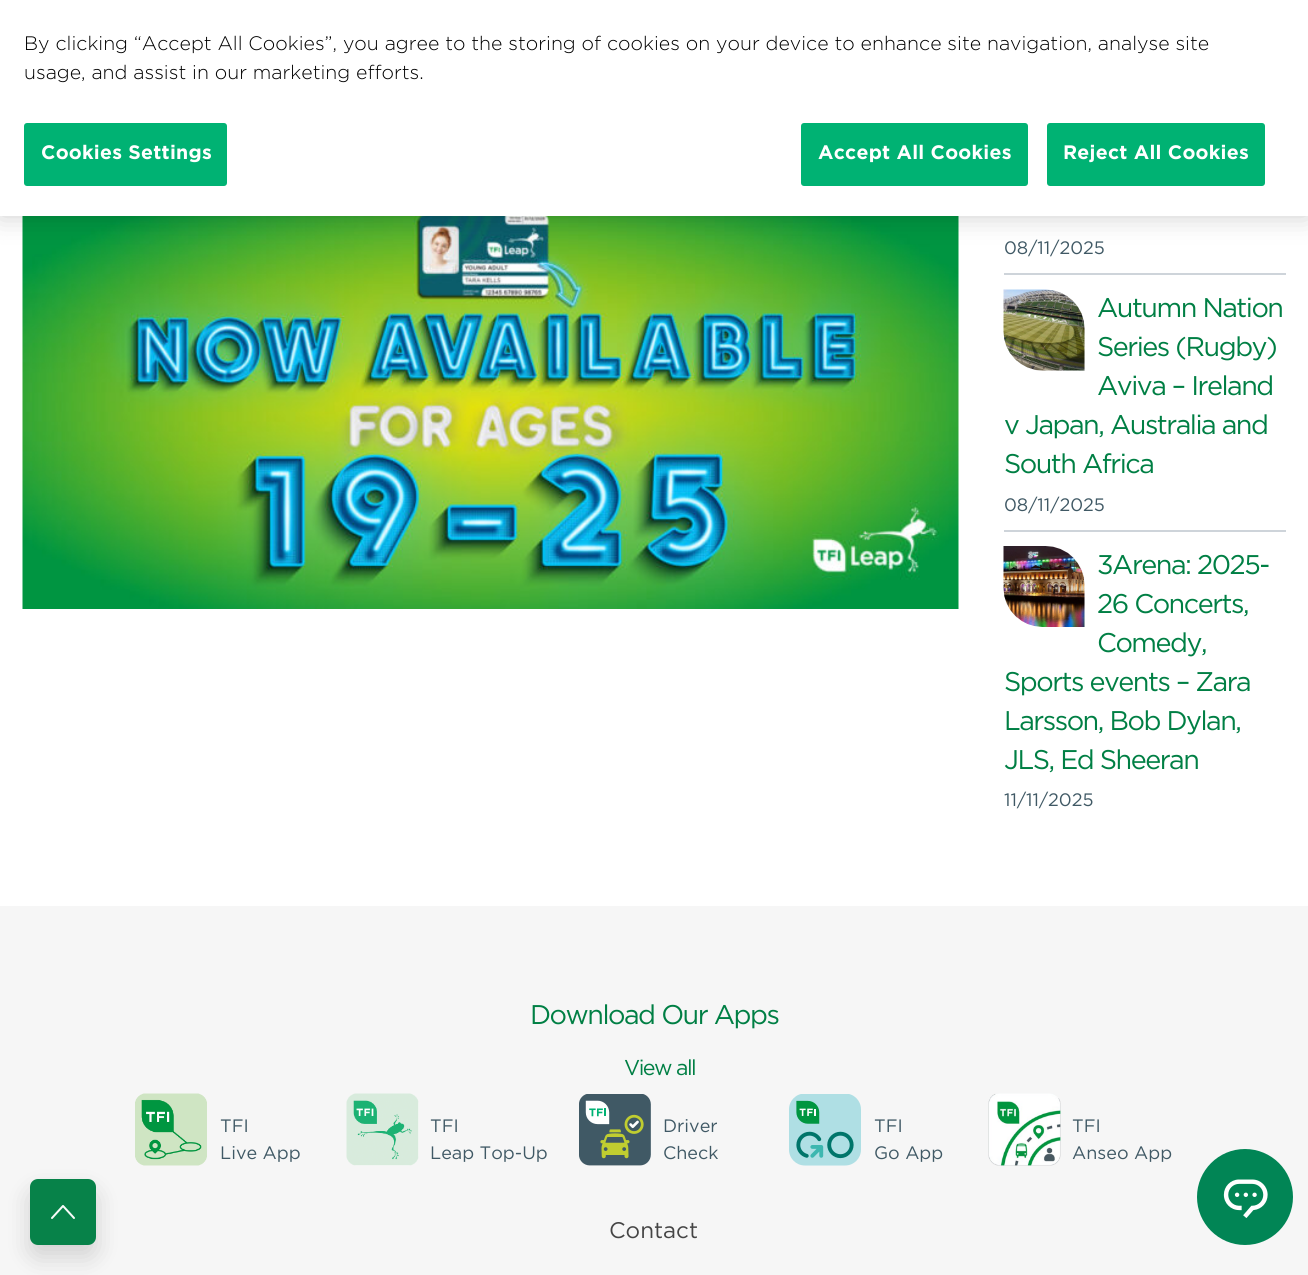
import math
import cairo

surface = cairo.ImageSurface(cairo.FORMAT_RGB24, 1308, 1275)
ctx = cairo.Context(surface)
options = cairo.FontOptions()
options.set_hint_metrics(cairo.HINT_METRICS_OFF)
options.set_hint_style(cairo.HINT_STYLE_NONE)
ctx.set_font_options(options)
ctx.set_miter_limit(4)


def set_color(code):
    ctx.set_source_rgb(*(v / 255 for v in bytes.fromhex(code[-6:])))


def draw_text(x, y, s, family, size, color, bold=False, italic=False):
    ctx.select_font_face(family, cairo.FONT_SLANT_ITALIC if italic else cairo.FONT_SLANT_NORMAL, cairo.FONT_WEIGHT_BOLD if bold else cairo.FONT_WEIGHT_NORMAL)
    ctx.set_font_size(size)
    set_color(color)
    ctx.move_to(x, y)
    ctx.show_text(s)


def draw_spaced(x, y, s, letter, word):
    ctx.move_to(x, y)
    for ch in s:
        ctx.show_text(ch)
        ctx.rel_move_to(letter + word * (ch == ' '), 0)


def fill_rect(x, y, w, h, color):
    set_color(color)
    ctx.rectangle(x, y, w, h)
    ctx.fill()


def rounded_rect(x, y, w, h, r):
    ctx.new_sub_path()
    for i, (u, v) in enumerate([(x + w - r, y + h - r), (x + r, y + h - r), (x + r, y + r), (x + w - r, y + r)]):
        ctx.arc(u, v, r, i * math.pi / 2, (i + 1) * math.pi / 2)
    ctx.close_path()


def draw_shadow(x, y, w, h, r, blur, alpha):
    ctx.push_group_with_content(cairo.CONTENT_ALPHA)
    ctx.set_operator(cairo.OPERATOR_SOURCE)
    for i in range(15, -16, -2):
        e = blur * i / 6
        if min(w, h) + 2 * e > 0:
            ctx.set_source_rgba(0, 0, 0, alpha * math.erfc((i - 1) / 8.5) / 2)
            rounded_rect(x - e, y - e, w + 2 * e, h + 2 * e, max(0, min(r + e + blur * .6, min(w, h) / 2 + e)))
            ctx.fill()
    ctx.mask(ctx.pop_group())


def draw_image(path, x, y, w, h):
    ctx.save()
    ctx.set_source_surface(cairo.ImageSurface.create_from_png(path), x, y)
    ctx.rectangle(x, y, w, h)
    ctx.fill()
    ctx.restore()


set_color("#ffffff")
ctx.paint()
draw_image("assets/img1.png", 22, 216, 937, 393)
set_color("#000000")
draw_shadow(0, 0, 1308, 216, 0, 13.5, 0.2)
fill_rect(0, 0, 1308, 216, "#ffffff")
draw_text(24, 50, "By clicking “Accept All Cookies”, you agree to the storing of cookies on your device to enhance site navigation, analyse site", "Gotham Light", 19.5, "#000000")
draw_text(24, 79, "usage, and assist in our marketing efforts.", "Gotham Light", 19.5, "#000000")
set_color("#00b273")
rounded_rect(25, 124, 201, 61, 2)
ctx.fill_preserve()
ctx.stroke()
ctx.select_font_face("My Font", cairo.FONT_SLANT_NORMAL, cairo.FONT_WEIGHT_BOLD)
set_color("#ffffff")
draw_spaced(41, 159, "Cookies Settings", 0.25, 0)
set_color("#00b273")
rounded_rect(802, 124, 225, 61, 2)
ctx.fill_preserve()
ctx.stroke()
set_color("#ffffff")
draw_spaced(818, 159, "Accept All Cookies", 0.25, 0)
set_color("#00b273")
rounded_rect(1048, 124, 216, 61, 2)
ctx.fill_preserve()
ctx.stroke()
set_color("#ffffff")
draw_spaced(1063, 159, "Reject All Cookies", 0.25, 0)
fill_rect(1004, 273, 282, 2, "#ced4da")
draw_text(1004, 254, "08/11/2025", "Gotham", 18, "#405965")
fill_rect(1004, 530, 282, 2, "#ced4da")
set_color("#f6f6f6")
ctx.new_path()
ctx.move_to(1004, 290)
ctx.line_to(1046, 290)
ctx.curve_to(1067.5, 290, 1085, 307.5, 1085, 329)
ctx.line_to(1085, 371)
ctx.line_to(1043, 371)
ctx.curve_to(1021.5, 371, 1004, 353.5, 1004, 332)
ctx.close_path()
ctx.fill()
draw_image("assets/img2.png", 1003, 289, 82, 82)
ctx.set_font_size(27)
set_color("#007f44")
draw_spaced(1097, 317, "Autumn Nation", -1.5, 0)
draw_spaced(1097, 356, "Series (Rugby)", -1.5, 0)
draw_spaced(1097, 395, "Aviva – Ireland", -1.5, 0)
draw_spaced(1004, 434, "v Japan, Australia and", -1.5, 0)
draw_spaced(1004, 473, "South Africa", -1.5, 0)
draw_text(1004, 511, "08/11/2025", "Gotham", 18, "#405965")
set_color("#f6f6f6")
ctx.new_path()
ctx.move_to(1004, 546)
ctx.line_to(1046, 546)
ctx.curve_to(1067.5, 546, 1085, 563.5, 1085, 585)
ctx.line_to(1085, 627)
ctx.line_to(1043, 627)
ctx.curve_to(1021.5, 627, 1004, 609.5, 1004, 588)
ctx.close_path()
ctx.fill()
draw_image("assets/img3.png", 1003, 546, 82, 81)
ctx.set_font_size(27)
set_color("#007f44")
draw_spaced(1097, 574, "3Arena: 2025-", -1.5, 0)
draw_spaced(1097, 613, "26 Concerts,", -1.5, 0)
draw_spaced(1097, 652, "Comedy,", -1.5, 0)
draw_spaced(1004, 691, "Sports events – Zara", -1.5, 0)
draw_spaced(1004, 730, "Larsson, Bob Dylan,", -1.5, 0)
draw_spaced(1004, 769, "JLS, Ed Sheeran", -1.5, 0)
draw_text(1004, 806, "11/11/2025", "Gotham", 18, "#405965")
fill_rect(0, 906, 1308, 369, "#f6f6f6")
set_color("#000000")
draw_shadow(30, 1191, 66, 66, 8, 12, 0.15)
set_color("#078249")
rounded_rect(30, 1179, 66, 66, 8)
ctx.fill()
draw_image("assets/img4.png", 51, 1205, 24, 14)
ctx.set_font_size(27)
set_color("#007f44")
draw_spaced(530, 1024, "Download Our Apps", -1.5, 0)
ctx.set_font_size(21.5)
draw_spaced(624, 1075, "View all", -1.5, 0)
draw_image("assets/img5.png", 135, 1093, 72, 73)
draw_text(220, 1132, "TFI", "Gotham", 18, "#405965")
draw_text(220, 1159, "Live App", "Gotham", 18, "#405965")
draw_image("assets/img6.png", 346, 1093, 73, 73)
draw_text(430, 1132, "TFI", "Gotham", 18, "#405965")
draw_text(430, 1159, "Leap Top-Up", "Gotham", 18, "#405965")
draw_image("assets/img7.png", 579, 1094, 72, 72)
draw_text(663, 1132, "Driver", "Gotham", 18, "#405965")
draw_text(663, 1159, "Check", "Gotham", 18, "#405965")
draw_image("assets/img8.png", 789, 1094, 72, 72)
draw_text(874, 1132, "TFI", "Gotham", 18, "#405965")
draw_text(874, 1159, "Go App", "Gotham", 18, "#405965")
draw_image("assets/img9.png", 988, 1093, 73, 73)
draw_text(1072, 1132, "TFI", "Gotham", 18, "#405965")
draw_text(1072, 1159, "Anseo App", "Gotham", 18, "#405965")
draw_text(609, 1238, "Contact", "Gotham", 22.5, "#454545")
set_color("#018555")
ctx.new_path()
ctx.arc(1245, 1197, 48, 0, 2 * math.pi)
ctx.fill()
draw_image("assets/img10.png", 1223, 1179, 45, 39)
surface.write_to_png("output.png")
